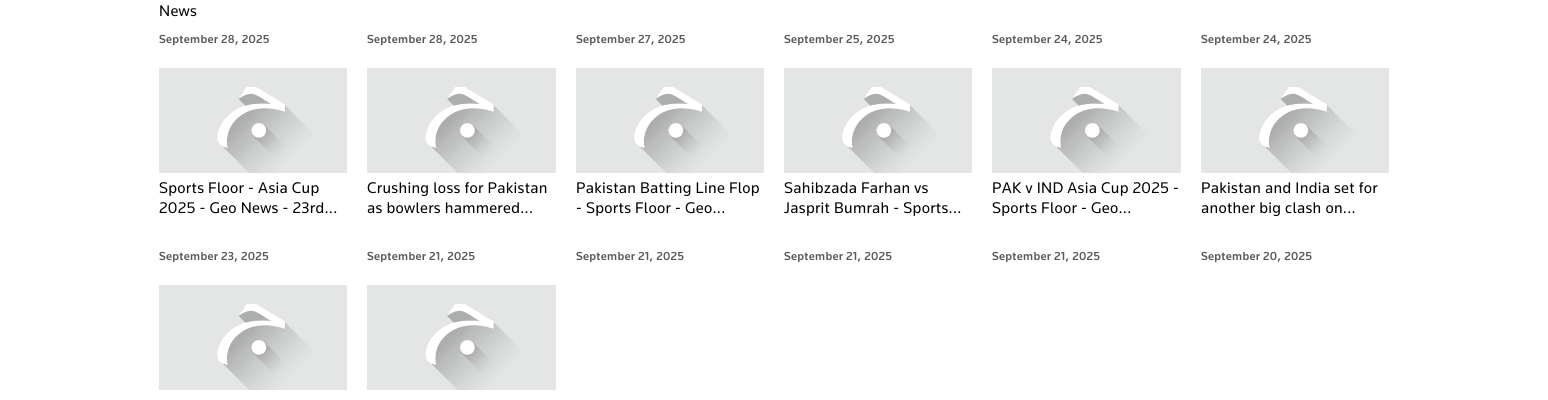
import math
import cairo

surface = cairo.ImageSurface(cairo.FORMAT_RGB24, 1548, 400)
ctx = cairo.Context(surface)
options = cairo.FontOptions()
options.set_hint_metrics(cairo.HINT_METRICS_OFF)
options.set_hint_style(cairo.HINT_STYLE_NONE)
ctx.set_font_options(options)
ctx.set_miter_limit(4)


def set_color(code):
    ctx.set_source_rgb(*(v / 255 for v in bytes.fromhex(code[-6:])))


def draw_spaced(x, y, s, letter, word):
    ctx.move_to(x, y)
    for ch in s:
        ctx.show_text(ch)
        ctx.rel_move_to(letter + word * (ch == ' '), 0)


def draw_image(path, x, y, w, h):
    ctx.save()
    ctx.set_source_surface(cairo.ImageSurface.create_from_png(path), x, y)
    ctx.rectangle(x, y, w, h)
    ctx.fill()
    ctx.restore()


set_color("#ffffff")
ctx.paint()
ctx.select_font_face("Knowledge")
ctx.set_font_size(16)
set_color("#000000")
draw_spaced(159, 16, "News", 0.3, 0)
ctx.select_font_face("Knowledge Medium")
ctx.set_font_size(12)
set_color("#595959")
draw_spaced(159, 43, "September 28, 2025", 0.3, 0)
draw_spaced(367, 43, "September 28, 2025", 0.3, 0)
draw_spaced(576, 43, "September 27, 2025", 0.3, 0)
draw_spaced(784, 43, "September 25, 2025", 0.3, 0)
draw_spaced(992, 43, "September 24, 2025", 0.3, 0)
draw_spaced(1201, 43, "September 24, 2025", 0.3, 0)
draw_image("assets/img1.png", 159, 68, 188, 105)
ctx.select_font_face("Knowledge")
ctx.set_font_size(16)
set_color("#000000")
draw_spaced(159, 193, "Sports Floor - Asia Cup", 0.3, 0)
draw_spaced(159, 213, "2025 - Geo News - 23rd...", 0.3, 0)
ctx.select_font_face("Knowledge Medium")
ctx.set_font_size(12)
set_color("#595959")
draw_spaced(159, 260, "September 23, 2025", 0.3, 0)
draw_image("assets/img2.png", 367, 68, 189, 105)
ctx.select_font_face("Knowledge")
ctx.set_font_size(16)
set_color("#000000")
draw_spaced(367, 193, "Crushing loss for Pakistan", 0.3, 0)
draw_spaced(367, 213, "as bowlers hammered...", 0.3, 0)
ctx.select_font_face("Knowledge Medium")
ctx.set_font_size(12)
set_color("#595959")
draw_spaced(367, 260, "September 21, 2025", 0.3, 0)
draw_image("assets/img3.png", 576, 68, 188, 105)
ctx.select_font_face("Knowledge")
ctx.set_font_size(16)
set_color("#000000")
draw_spaced(576, 193, "Pakistan Batting Line Flop", 0.3, 0)
draw_spaced(576, 213, "- Sports Floor - Geo...", 0.3, 0)
ctx.select_font_face("Knowledge Medium")
ctx.set_font_size(12)
set_color("#595959")
draw_spaced(576, 260, "September 21, 2025", 0.3, 0)
draw_image("assets/img1.png", 784, 68, 188, 105)
ctx.select_font_face("Knowledge")
ctx.set_font_size(16)
set_color("#000000")
draw_spaced(784, 193, "Sahibzada Farhan vs", 0.3, 0)
draw_spaced(784, 213, "Jasprit Bumrah - Sports...", 0.3, 0)
ctx.select_font_face("Knowledge Medium")
ctx.set_font_size(12)
set_color("#595959")
draw_spaced(784, 260, "September 21, 2025", 0.3, 0)
draw_image("assets/img4.png", 992, 68, 189, 105)
ctx.select_font_face("Knowledge")
ctx.set_font_size(16)
set_color("#000000")
draw_spaced(992, 193, "PAK v IND Asia Cup 2025 -", 0.3, 0)
draw_spaced(992, 213, "Sports Floor - Geo...", 0.3, 0)
ctx.select_font_face("Knowledge Medium")
ctx.set_font_size(12)
set_color("#595959")
draw_spaced(992, 260, "September 21, 2025", 0.3, 0)
draw_image("assets/img1.png", 1201, 68, 188, 105)
ctx.select_font_face("Knowledge")
ctx.set_font_size(16)
set_color("#000000")
draw_spaced(1201, 193, "Pakistan and India set for", 0.3, 0)
draw_spaced(1201, 213, "another big clash on...", 0.3, 0)
ctx.select_font_face("Knowledge Medium")
ctx.set_font_size(12)
set_color("#595959")
draw_spaced(1201, 260, "September 20, 2025", 0.3, 0)
draw_image("assets/img5.png", 159, 285, 188, 105)
draw_image("assets/img6.png", 367, 285, 189, 105)
surface.write_to_png("output.png")
